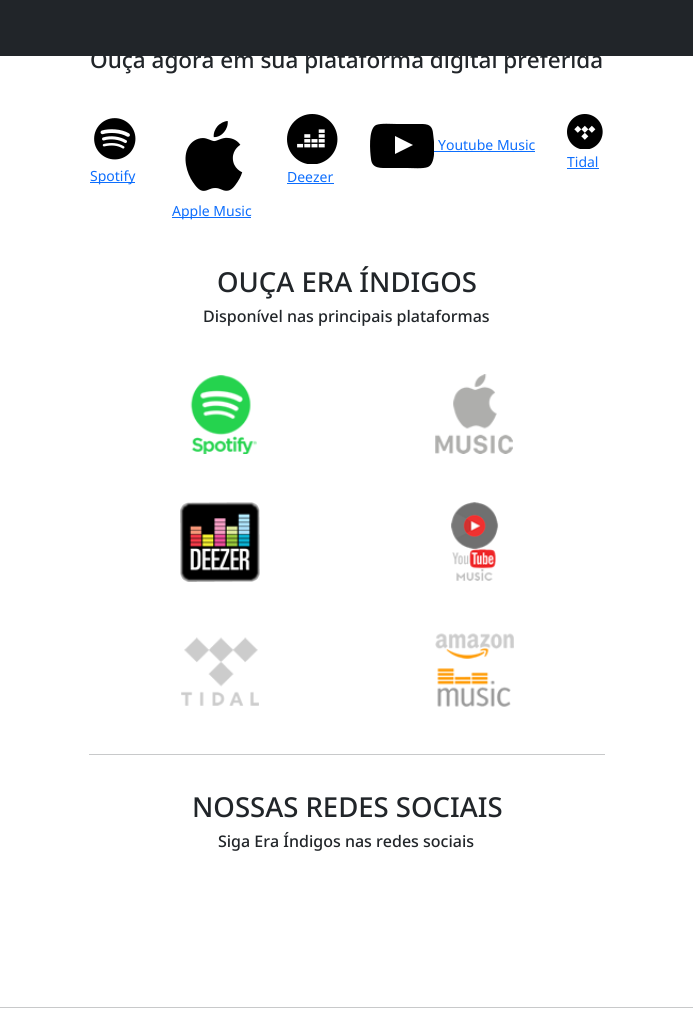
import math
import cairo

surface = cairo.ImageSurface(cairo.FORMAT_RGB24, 693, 1016)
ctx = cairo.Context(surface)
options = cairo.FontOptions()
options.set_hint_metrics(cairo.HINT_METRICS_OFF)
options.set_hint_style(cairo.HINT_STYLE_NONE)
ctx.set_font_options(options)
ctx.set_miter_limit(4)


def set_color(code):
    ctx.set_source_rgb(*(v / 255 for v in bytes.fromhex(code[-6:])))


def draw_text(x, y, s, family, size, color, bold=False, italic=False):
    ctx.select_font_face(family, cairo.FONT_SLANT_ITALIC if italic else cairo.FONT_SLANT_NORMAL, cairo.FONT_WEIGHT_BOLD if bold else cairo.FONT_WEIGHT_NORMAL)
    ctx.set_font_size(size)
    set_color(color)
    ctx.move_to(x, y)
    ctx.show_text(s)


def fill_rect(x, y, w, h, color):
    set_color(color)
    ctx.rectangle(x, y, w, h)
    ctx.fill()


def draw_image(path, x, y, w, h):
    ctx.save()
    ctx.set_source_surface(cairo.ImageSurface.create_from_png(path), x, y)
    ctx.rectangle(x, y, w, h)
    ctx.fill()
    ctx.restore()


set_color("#ffffff")
ctx.paint()
fill_rect(0, 0, 693, 56, "#212529")
draw_text(90, 68, "Ouça agora em sua plataforma digital preferida", "Noto Sans Medium", 22.5, "#212529")
ctx.save()
ctx.rectangle(370, 114, 64, 64)
ctx.clip()
set_color("#000000")
ctx.set_fill_rule(cairo.FILL_RULE_EVEN_ODD)
ctx.new_path()
ctx.move_to(433, 133)
ctx.curve_to(432, 123, 425, 124, 417, 124)
ctx.line_to(397, 124)
ctx.curve_to(392, 124, 381, 123, 376, 125)
ctx.curve_to(368, 129, 370, 152, 371, 159)
ctx.curve_to(372, 169, 381, 168, 389, 168)
ctx.line_to(407, 168)
ctx.curve_to(412, 168, 423, 169, 428, 167)
ctx.curve_to(437, 163, 434, 140, 433, 133)
ctx.close_path()
ctx.move_to(395, 154)
ctx.line_to(395, 136)
ctx.line_to(413, 145)
ctx.close_path()
ctx.fill()
ctx.restore()
draw_text(438, 150, "Youtube Music", "Noto Sans", 14, "#0d6efd")
fill_rect(434, 151, 101, 1, "#0d6efd")
draw_image("assets/img1.png", 567, 114, 36, 35)
draw_text(567, 167, "Tidal", "Noto Sans", 14, "#0d6efd")
fill_rect(567, 168, 32, 1, "#0d6efd")
draw_image("assets/img2.png", 94, 118, 42, 42)
fill_rect(90, 182, 45, 1, "#0d6efd")
draw_text(90, 181, "Spotify", "Noto Sans", 14, "#0d6efd")
draw_image("assets/img3.png", 287, 114, 51, 50)
draw_text(287, 182, "Deezer", "Noto Sans", 14, "#0d6efd")
fill_rect(287, 183, 47, 1, "#0d6efd")
draw_image("assets/img4.png", 185, 121, 58, 70)
fill_rect(172, 217, 79, 1, "#0d6efd")
draw_text(172, 216, "Apple Music", "Noto Sans", 14, "#0d6efd")
draw_text(217, 292, "OUÇA ERA ÍNDIGOS", "Noto Sans Medium", 27.5, "#212529")
draw_text(203, 322, "Disponível nas principais plataformas", "Noto Sans Medium", 16, "#212529")
draw_image("assets/img5.png", 190, 375, 67, 79)
draw_image("assets/img6.png", 435, 374, 78, 80)
draw_image("assets/img7.png", 180, 502, 80, 80)
draw_image("assets/img8.png", 451, 502, 48, 79)
draw_image("assets/img9.png", 181, 637, 78, 69)
draw_image("assets/img10.png", 435, 633, 79, 74)
fill_rect(89, 754, 516, 1, "#c8c9ca")
draw_text(192, 817, "NOSSAS REDES SOCIAIS", "Noto Sans Medium", 27.5, "#212529")
draw_text(218, 847, "Siga Era Índigos nas redes sociais", "Noto Sans Medium", 16, "#212529")
fill_rect(0, 1007, 693, 1, "#c8c9ca")
surface.write_to_png("output.png")
